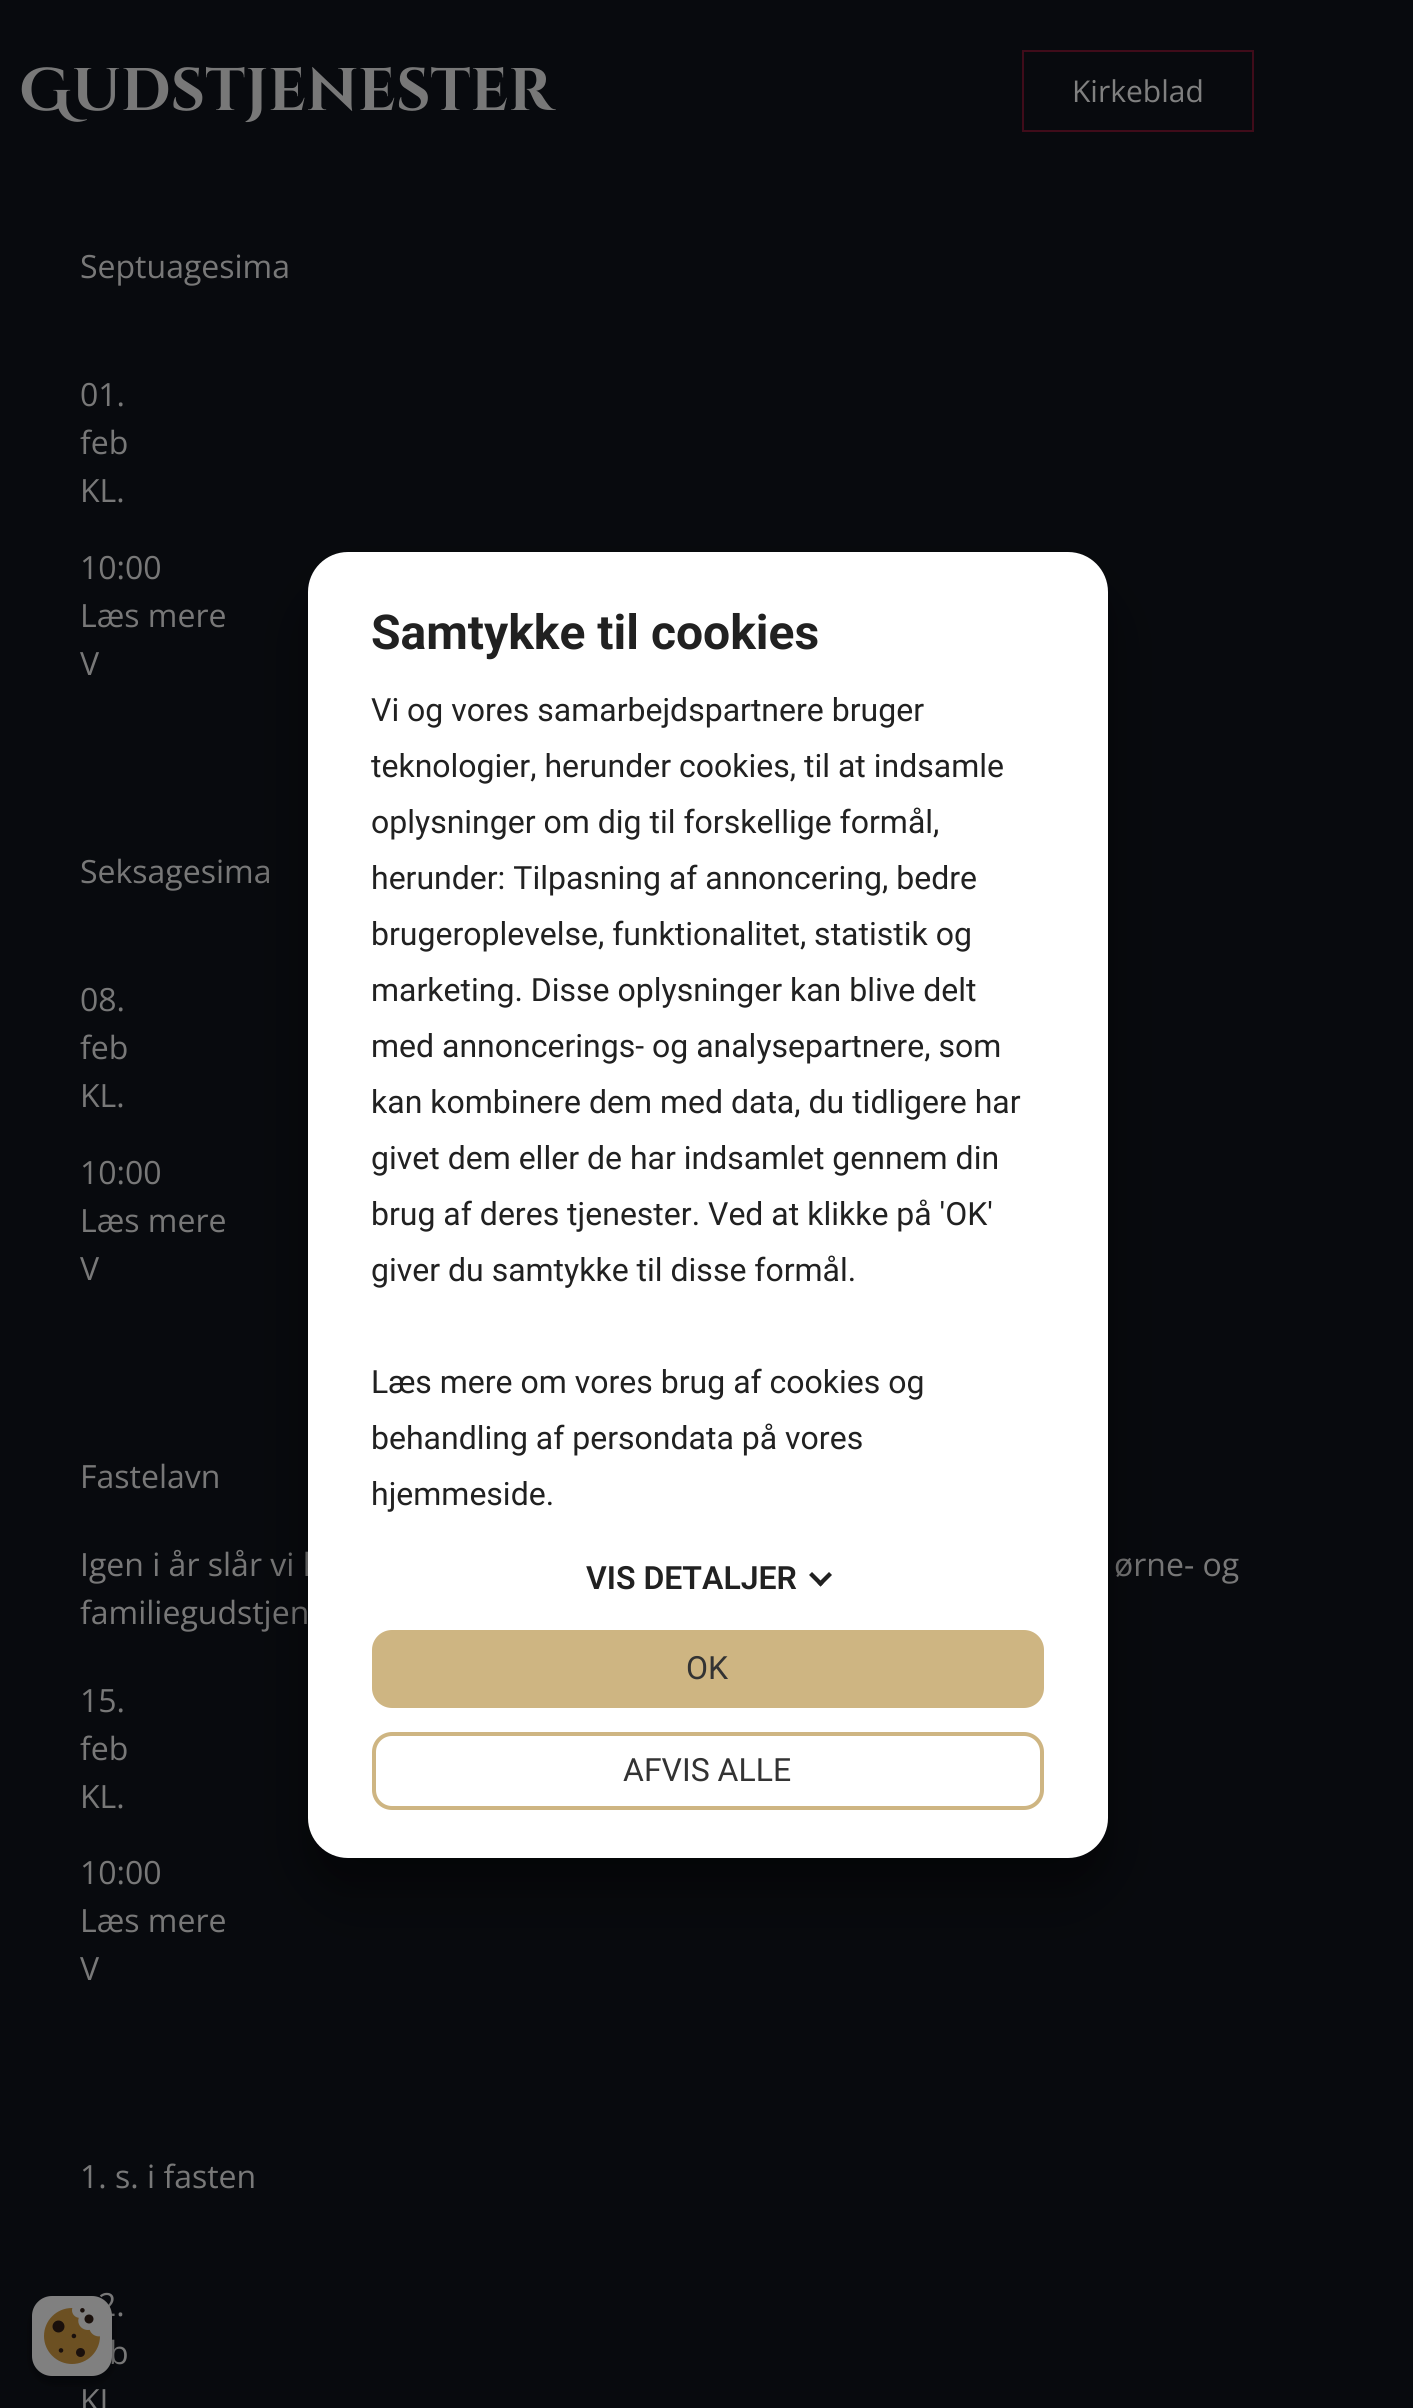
import math
import cairo

surface = cairo.ImageSurface(cairo.FORMAT_RGB24, 1413, 2408)
ctx = cairo.Context(surface)
options = cairo.FontOptions()
options.set_hint_metrics(cairo.HINT_METRICS_OFF)
options.set_hint_style(cairo.HINT_STYLE_NONE)
ctx.set_font_options(options)
ctx.set_miter_limit(4)


def set_color(code):
    ctx.set_source_rgb(*(v / 255 for v in bytes.fromhex(code[-6:])))


def draw_text(x, y, s, family, size, color, bold=False, italic=False):
    ctx.select_font_face(family, cairo.FONT_SLANT_ITALIC if italic else cairo.FONT_SLANT_NORMAL, cairo.FONT_WEIGHT_BOLD if bold else cairo.FONT_WEIGHT_NORMAL)
    ctx.set_font_size(size)
    set_color(color)
    ctx.move_to(x, y)
    ctx.show_text(s)


def rounded_rect(x, y, w, h, r):
    ctx.new_sub_path()
    for i, (u, v) in enumerate([(x + w - r, y + h - r), (x + r, y + h - r), (x + r, y + r), (x + w - r, y + r)]):
        ctx.arc(u, v, r, i * math.pi / 2, (i + 1) * math.pi / 2)
    ctx.close_path()


def draw_shadow(x, y, w, h, r, blur, alpha):
    ctx.push_group_with_content(cairo.CONTENT_ALPHA)
    ctx.set_operator(cairo.OPERATOR_SOURCE)
    for i in range(15, -16, -2):
        e = blur * i / 6
        if min(w, h) + 2 * e > 0:
            ctx.set_source_rgba(0, 0, 0, alpha * math.erfc((i - 1) / 8.5) / 2)
            rounded_rect(x - e, y - e, w + 2 * e, h + 2 * e, max(0, min(r + e + blur * .6, min(w, h) / 2 + e)))
            ctx.fill()
    ctx.mask(ctx.pop_group())


def draw_image(path, x, y, w, h):
    ctx.save()
    ctx.set_source_surface(cairo.ImageSurface.create_from_png(path), x, y)
    ctx.rectangle(x, y, w, h)
    ctx.fill()
    ctx.restore()


set_color("#080a0e")
ctx.paint()
draw_text(20, 110, "Gudstjenester", "Cinzel Decorative", 60, "#787878", bold=True)
draw_text(80, 278, "Septuagesima", "Open Sans", 32, "#787878")
draw_text(80, 406, "01.", "Open Sans", 32, "#787878")
draw_text(80, 454, "feb", "Open Sans", 32, "#787878")
draw_text(80, 502, "KL.", "Open Sans", 32, "#787878")
draw_text(80, 579, "10:00", "Open Sans", 32, "#787878")
draw_text(80, 627, "Læs mere", "Open Sans", 32, "#787878")
draw_text(80, 675, "V", "Open Sans", 32, "#787878")
draw_text(80, 883, "Seksagesima", "Open Sans", 32, "#787878")
draw_text(80, 1011, "08.", "Open Sans", 32, "#787878")
draw_text(80, 1059, "feb", "Open Sans", 32, "#787878")
draw_text(80, 1107, "KL.", "Open Sans", 32, "#787878")
draw_text(80, 1184, "10:00", "Open Sans", 32, "#787878")
draw_text(80, 1232, "Læs mere", "Open Sans", 32, "#787878")
draw_text(80, 1280, "V", "Open Sans", 32, "#787878")
draw_text(80, 1488, "Fastelavn", "Open Sans", 32, "#787878")
draw_text(80, 1576, "Igen i år slår vi k", "Open Sans", 32, "#787878")
draw_text(1114, 1576, "ørne- og", "Open Sans", 32, "#787878")
draw_text(80, 1624, "familiegudstjen", "Open Sans", 32, "#787878")
draw_text(80, 1712, "15.", "Open Sans", 32, "#787878")
draw_text(80, 1760, "feb", "Open Sans", 32, "#787878")
draw_text(80, 1808, "KL.", "Open Sans", 32, "#787878")
draw_text(80, 1884, "10:00", "Open Sans", 32, "#787878")
draw_text(80, 1932, "Læs mere", "Open Sans", 32, "#787878")
draw_text(80, 1980, "V", "Open Sans", 32, "#787878")
draw_text(80, 2188, "1. s. i fasten", "Open Sans", 32, "#787878")
draw_text(98, 2316, "2.", "Open Sans", 32, "#787878")
draw_text(109, 2364, "b", "Open Sans", 32, "#787878")
draw_text(80, 2412, "KL", "Open Sans", 32, "#787878")
ctx.rectangle(1023, 51, 230, 80)
set_color("#400c1a")
ctx.stroke()
draw_text(1072, 102, "Kirkeblad", "Open Sans", 30, "#808080")
set_color("#000000")
draw_shadow(308, 582, 800, 1306, 40, 12, 0.22)
draw_shadow(308, 590, 800, 1306, 40, 38, 0.3)
set_color("#ffffff")
rounded_rect(308, 552, 800, 1306, 40)
ctx.fill()
draw_text(371, 649, "Samtykke til cookies", "Roboto", 48, "#212121", bold=True)
draw_text(371, 721, "Vi og vores samarbejdspartnere bruger", "Roboto", 32, "#212121")
draw_text(371, 777, "teknologier, herunder cookies, til at indsamle", "Roboto", 32, "#212121")
draw_text(371, 833, "oplysninger om dig til forskellige formål,", "Roboto", 32, "#212121")
draw_text(371, 889, "herunder: Tilpasning af annoncering, bedre", "Roboto", 32, "#212121")
draw_text(371, 945, "brugeroplevelse, funktionalitet, statistik og", "Roboto", 32, "#212121")
draw_text(371, 1001, "marketing. Disse oplysninger kan blive delt", "Roboto", 32, "#212121")
draw_text(371, 1057, "med annoncerings- og analysepartnere, som", "Roboto", 32, "#212121")
draw_text(371, 1113, "kan kombinere dem med data, du tidligere har", "Roboto", 32, "#212121")
draw_text(371, 1169, "givet dem eller de har indsamlet gennem din", "Roboto", 32, "#212121")
draw_text(371, 1225, "brug af deres tjenester. Ved at klikke på 'OK'", "Roboto", 32, "#212121")
draw_text(371, 1281, "giver du samtykke til disse formål.", "Roboto", 32, "#212121")
draw_text(371, 1393, "Læs mere om vores brug af cookies og", "Roboto", 32, "#212121")
draw_text(371, 1449, "behandling af persondata på vores", "Roboto", 32, "#212121")
draw_text(371, 1505, "hjemmeside.", "Roboto", 32, "#212121")
draw_text(586, 1589, "VIS DETALJER", "Roboto SemiBold", 32, "#212121")
ctx.new_path()
ctx.move_to(829, 1572)
ctx.line_to(832, 1575)
ctx.line_to(820.5, 1586.5)
ctx.line_to(817.5, 1583.5)
ctx.close_path()
ctx.fill()
ctx.new_path()
ctx.move_to(812, 1572)
ctx.line_to(823.5, 1583.5)
ctx.line_to(820.5, 1586.5)
ctx.line_to(809, 1575)
ctx.close_path()
ctx.fill()
set_color("#ceb582")
rounded_rect(374, 1632, 668, 74, 18)
ctx.fill_preserve()
ctx.set_line_width(4)
ctx.stroke()
draw_text(686, 1679, "OK", "Roboto", 32, "#333333")
rounded_rect(374, 1734, 668, 74, 18)
set_color("#ceb582")
ctx.stroke()
draw_text(623, 1781, "AFVIS ALLE", "Roboto", 32, "#333333")
set_color("#000000")
draw_shadow(32, 2302, 80, 80, 20, 6, 0.23)
draw_shadow(32, 2302, 80, 80, 20, 6, 0.16)
set_color("#808080")
rounded_rect(32, 2296, 80, 80, 20)
ctx.fill()
draw_image("assets/img1.png", 44, 2308, 56, 56)
surface.write_to_png("output.png")
